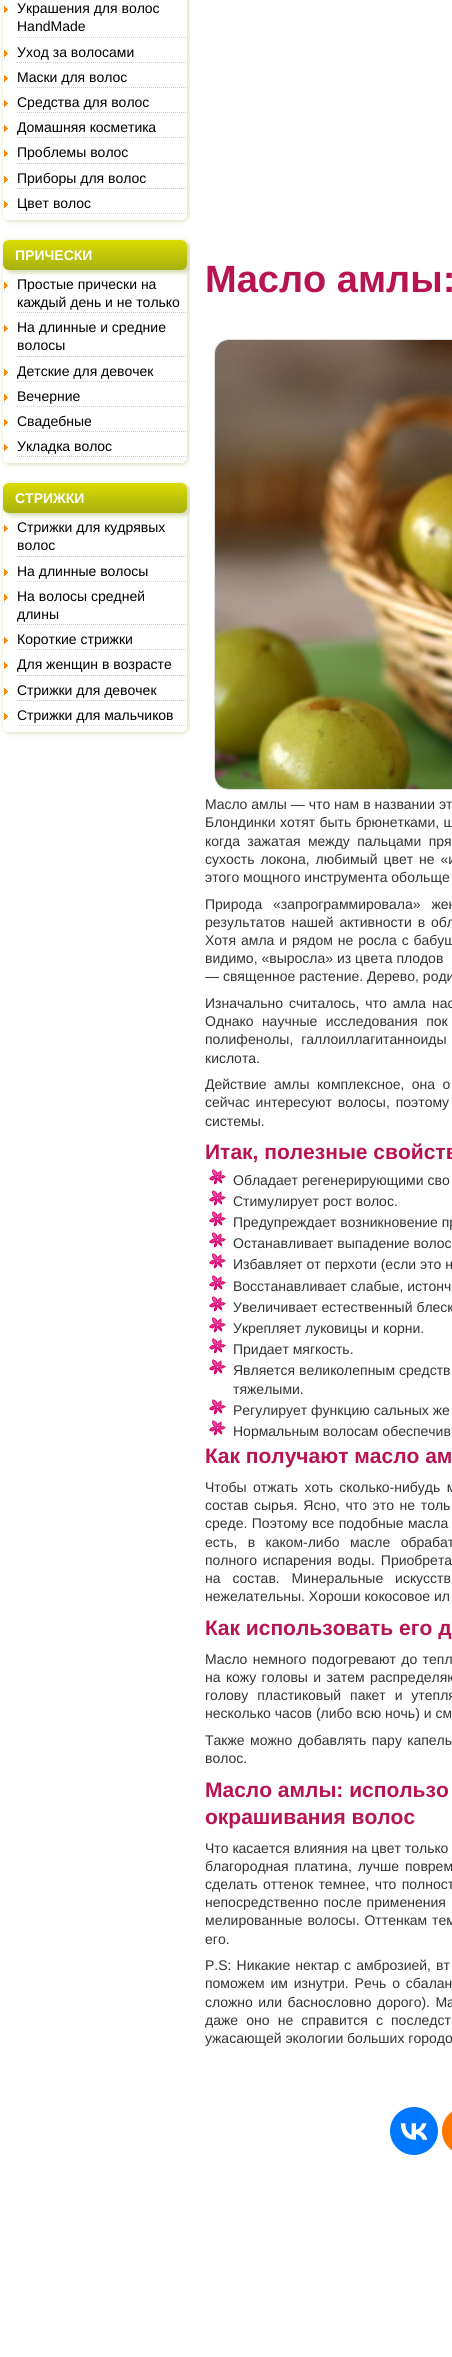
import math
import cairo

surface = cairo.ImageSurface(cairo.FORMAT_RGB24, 452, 2357)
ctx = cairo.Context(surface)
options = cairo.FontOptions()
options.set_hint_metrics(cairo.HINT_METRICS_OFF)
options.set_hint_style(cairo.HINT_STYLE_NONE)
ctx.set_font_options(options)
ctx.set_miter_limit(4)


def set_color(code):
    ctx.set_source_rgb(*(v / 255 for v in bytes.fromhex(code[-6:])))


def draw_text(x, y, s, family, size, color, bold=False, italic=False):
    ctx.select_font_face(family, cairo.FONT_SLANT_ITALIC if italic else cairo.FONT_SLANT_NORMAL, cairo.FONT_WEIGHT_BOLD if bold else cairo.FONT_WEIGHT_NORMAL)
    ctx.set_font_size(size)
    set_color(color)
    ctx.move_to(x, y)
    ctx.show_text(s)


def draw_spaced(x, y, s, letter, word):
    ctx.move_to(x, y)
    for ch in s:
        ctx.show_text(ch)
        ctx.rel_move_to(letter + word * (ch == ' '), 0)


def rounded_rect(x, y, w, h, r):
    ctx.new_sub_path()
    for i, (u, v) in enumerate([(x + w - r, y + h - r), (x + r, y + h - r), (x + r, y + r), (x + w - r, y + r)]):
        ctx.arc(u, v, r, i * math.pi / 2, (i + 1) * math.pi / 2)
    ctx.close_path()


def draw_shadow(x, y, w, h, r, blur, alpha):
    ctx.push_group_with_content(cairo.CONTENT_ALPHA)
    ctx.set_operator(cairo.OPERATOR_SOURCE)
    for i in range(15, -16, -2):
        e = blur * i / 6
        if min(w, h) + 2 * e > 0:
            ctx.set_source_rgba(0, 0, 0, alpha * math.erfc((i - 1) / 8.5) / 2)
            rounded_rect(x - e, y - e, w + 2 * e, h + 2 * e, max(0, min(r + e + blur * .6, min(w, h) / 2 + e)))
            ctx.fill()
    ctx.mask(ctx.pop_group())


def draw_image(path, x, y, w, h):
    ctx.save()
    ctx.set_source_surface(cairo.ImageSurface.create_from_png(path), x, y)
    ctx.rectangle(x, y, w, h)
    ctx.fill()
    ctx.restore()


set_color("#ffffff")
ctx.paint()
ctx.save()
ctx.rectangle(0, 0, 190, 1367)
ctx.clip()
ctx.set_fill_rule(cairo.FILL_RULE_EVEN_ODD)
ctx.new_path()
ctx.move_to(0, 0)
ctx.line_to(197, 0)
ctx.line_to(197, 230)
ctx.line_to(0, 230)
ctx.close_path()
ctx.move_to(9, -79)
ctx.line_to(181, -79)
ctx.curve_to(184.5, -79, 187, -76.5, 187, -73)
ctx.line_to(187, 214)
ctx.curve_to(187, 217.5, 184.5, 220, 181, 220)
ctx.line_to(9, 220)
ctx.curve_to(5.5, 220, 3, 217.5, 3, 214)
ctx.line_to(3, -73)
ctx.curve_to(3, -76.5, 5.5, -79, 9, -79)
ctx.close_path()
ctx.clip()
set_color("#d6dbb3")
draw_shadow(4, -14, 184, 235, 6, 2.5, 1)
ctx.restore()
ctx.new_path()
ctx.move_to(17, 37.5)
ctx.line_to(186, 37.5)
set_color("#cccccc")
ctx.set_line_width(1)
ctx.set_dash([1, 1])
ctx.stroke()
draw_image("assets/img1.png", 4, 6, 4, 7)
draw_text(17, 13, "Украшения для волос", "Liberation Sans", 14, "#000000")
draw_text(17, 31, "HandMade", "Liberation Sans", 14, "#000000")
ctx.new_path()
ctx.move_to(17, 62.5)
ctx.line_to(186, 62.5)
set_color("#cccccc")
ctx.stroke()
draw_image("assets/img1.png", 4, 50, 4, 7)
draw_text(17, 57, "Уход за волосами", "Liberation Sans", 14, "#000000")
ctx.new_path()
ctx.move_to(17, 87.5)
ctx.line_to(186, 87.5)
set_color("#cccccc")
ctx.stroke()
draw_image("assets/img1.png", 4, 75, 4, 7)
draw_text(17, 82, "Маски для волос", "Liberation Sans", 14, "#000000")
ctx.new_path()
ctx.move_to(17, 112.5)
ctx.line_to(186, 112.5)
set_color("#cccccc")
ctx.stroke()
draw_image("assets/img1.png", 4, 100, 4, 7)
draw_text(17, 107, "Средства для волос", "Liberation Sans", 14, "#000000")
ctx.new_path()
ctx.move_to(17, 137.5)
ctx.line_to(186, 137.5)
set_color("#cccccc")
ctx.stroke()
draw_image("assets/img1.png", 4, 125, 4, 7)
draw_text(17, 132, "Домашняя косметика", "Liberation Sans", 14, "#000000")
ctx.new_path()
ctx.move_to(17, 163.5)
ctx.line_to(186, 163.5)
set_color("#cccccc")
ctx.stroke()
draw_image("assets/img1.png", 4, 150, 4, 7)
draw_text(17, 157, "Проблемы волос", "Liberation Sans", 14, "#000000")
ctx.new_path()
ctx.move_to(17, 188.5)
ctx.line_to(186, 188.5)
set_color("#cccccc")
ctx.stroke()
draw_image("assets/img1.png", 4, 176, 4, 7)
draw_text(17, 183, "Приборы для волос", "Liberation Sans", 14, "#000000")
ctx.new_path()
ctx.move_to(17, 213.5)
ctx.line_to(186, 213.5)
set_color("#cccccc")
ctx.stroke()
draw_image("assets/img1.png", 4, 201, 4, 7)
draw_text(17, 208, "Цвет волос", "Liberation Sans", 14, "#000000")
ctx.save()
ctx.rectangle(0, 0, 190, 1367)
ctx.clip()
ctx.set_fill_rule(cairo.FILL_RULE_EVEN_ODD)
ctx.new_path()
ctx.move_to(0, 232)
ctx.line_to(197, 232)
ctx.line_to(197, 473)
ctx.line_to(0, 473)
ctx.close_path()
ctx.move_to(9, 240)
ctx.line_to(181, 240)
ctx.curve_to(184.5, 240, 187, 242.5, 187, 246)
ctx.line_to(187, 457)
ctx.curve_to(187, 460.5, 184.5, 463, 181, 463)
ctx.line_to(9, 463)
ctx.curve_to(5.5, 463, 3, 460.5, 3, 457)
ctx.line_to(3, 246)
ctx.curve_to(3, 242.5, 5.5, 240, 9, 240)
ctx.close_path()
ctx.clip()
set_color("#d6dbb3")
draw_shadow(4, 241, 184, 223, 6, 2.5, 1)
ctx.restore()
ctx.save()
ctx.rectangle(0, 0, 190, 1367)
ctx.clip()
set_color("#d6dbb3")
draw_shadow(6, 243, 184, 30, 6, 2, 1)
ctx.restore()
gradient = cairo.LinearGradient(95, 240, 95, 270)
gradient.add_color_stop_rgba(0, 0.859, 0.859, 0, 1)
gradient.add_color_stop_rgba(1, 0.659, 0.694, 0.071, 1)
ctx.set_source(gradient)
rounded_rect(3, 240, 184, 30, 6)
ctx.fill()
draw_text(15, 260, "ПРИЧЕСКИ", "Liberation Sans", 14, "#ffffff", bold=True)
ctx.new_path()
ctx.move_to(17, 312.5)
ctx.line_to(186, 312.5)
set_color("#cccccc")
ctx.stroke()
draw_image("assets/img1.png", 4, 282, 4, 7)
draw_text(17, 289, "Простые прически на", "Liberation Sans", 14, "#000000")
draw_text(17, 307, "каждый день и не только", "Liberation Sans", 14, "#000000")
ctx.new_path()
ctx.move_to(17, 356.5)
ctx.line_to(186, 356.5)
set_color("#cccccc")
ctx.stroke()
draw_image("assets/img1.png", 4, 325, 4, 7)
draw_text(17, 332, "На длинные и средние", "Liberation Sans", 14, "#000000")
draw_text(17, 350, "волосы", "Liberation Sans", 14, "#000000")
ctx.new_path()
ctx.move_to(17, 381.5)
ctx.line_to(186, 381.5)
set_color("#cccccc")
ctx.stroke()
draw_image("assets/img1.png", 4, 369, 4, 7)
draw_text(17, 376, "Детские для девочек", "Liberation Sans", 14, "#000000")
ctx.new_path()
ctx.move_to(17, 406.5)
ctx.line_to(186, 406.5)
set_color("#cccccc")
ctx.stroke()
draw_image("assets/img1.png", 4, 394, 4, 7)
draw_text(17, 401, "Вечерние", "Liberation Sans", 14, "#000000")
ctx.new_path()
ctx.move_to(17, 431.5)
ctx.line_to(186, 431.5)
set_color("#cccccc")
ctx.stroke()
draw_image("assets/img1.png", 4, 419, 4, 7)
draw_text(17, 426, "Свадебные", "Liberation Sans", 14, "#000000")
ctx.new_path()
ctx.move_to(17, 456.5)
ctx.line_to(186, 456.5)
set_color("#cccccc")
ctx.stroke()
draw_image("assets/img1.png", 4, 444, 4, 7)
draw_text(17, 451, "Укладка волос", "Liberation Sans", 14, "#000000")
ctx.save()
ctx.rectangle(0, 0, 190, 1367)
ctx.clip()
ctx.set_fill_rule(cairo.FILL_RULE_EVEN_ODD)
ctx.new_path()
ctx.move_to(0, 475)
ctx.line_to(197, 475)
ctx.line_to(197, 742)
ctx.line_to(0, 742)
ctx.close_path()
ctx.move_to(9, 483)
ctx.line_to(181, 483)
ctx.curve_to(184.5, 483, 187, 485.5, 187, 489)
ctx.line_to(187, 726)
ctx.curve_to(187, 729.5, 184.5, 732, 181, 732)
ctx.line_to(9, 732)
ctx.curve_to(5.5, 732, 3, 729.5, 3, 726)
ctx.line_to(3, 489)
ctx.curve_to(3, 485.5, 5.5, 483, 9, 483)
ctx.close_path()
ctx.clip()
set_color("#d6dbb3")
draw_shadow(4, 484, 184, 249, 6, 2.5, 1)
ctx.restore()
ctx.save()
ctx.rectangle(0, 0, 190, 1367)
ctx.clip()
set_color("#d6dbb3")
draw_shadow(6, 486, 184, 30, 6, 2, 1)
ctx.restore()
gradient = cairo.LinearGradient(95, 483, 95, 513)
gradient.add_color_stop_rgba(0, 0.859, 0.859, 0, 1)
gradient.add_color_stop_rgba(1, 0.659, 0.694, 0.071, 1)
ctx.set_source(gradient)
rounded_rect(3, 483, 184, 30, 6)
ctx.fill()
draw_text(15, 503, "СТРИЖКИ", "Liberation Sans", 14, "#ffffff", bold=True)
ctx.new_path()
ctx.move_to(17, 556.5)
ctx.line_to(186, 556.5)
set_color("#cccccc")
ctx.stroke()
draw_image("assets/img1.png", 4, 525, 4, 7)
draw_text(17, 532, "Стрижки для кудрявых", "Liberation Sans", 14, "#000000")
draw_text(17, 550, "волос", "Liberation Sans", 14, "#000000")
ctx.new_path()
ctx.move_to(17, 581.5)
ctx.line_to(186, 581.5)
set_color("#cccccc")
ctx.stroke()
draw_image("assets/img1.png", 4, 569, 4, 7)
draw_text(17, 576, "На длинные волосы", "Liberation Sans", 14, "#000000")
ctx.new_path()
ctx.move_to(17, 624.5)
ctx.line_to(186, 624.5)
set_color("#cccccc")
ctx.stroke()
draw_image("assets/img1.png", 4, 594, 4, 7)
draw_text(17, 601, "На волосы средней", "Liberation Sans", 14, "#000000")
draw_text(17, 619, "длины", "Liberation Sans", 14, "#000000")
ctx.new_path()
ctx.move_to(17, 649.5)
ctx.line_to(186, 649.5)
set_color("#cccccc")
ctx.stroke()
draw_image("assets/img1.png", 4, 637, 4, 7)
draw_text(17, 644, "Короткие стрижки", "Liberation Sans", 14, "#000000")
ctx.new_path()
ctx.move_to(17, 675.5)
ctx.line_to(186, 675.5)
set_color("#cccccc")
ctx.stroke()
draw_image("assets/img1.png", 4, 662, 4, 7)
draw_text(17, 669, "Для женщин в возрасте", "Liberation Sans", 14, "#000000")
ctx.new_path()
ctx.move_to(17, 700.5)
ctx.line_to(186, 700.5)
set_color("#cccccc")
ctx.stroke()
draw_image("assets/img1.png", 4, 688, 4, 7)
draw_text(17, 695, "Стрижки для девочек", "Liberation Sans", 14, "#000000")
ctx.new_path()
ctx.move_to(17, 725.5)
ctx.line_to(186, 725.5)
set_color("#cccccc")
ctx.stroke()
draw_image("assets/img1.png", 4, 713, 4, 7)
draw_text(17, 720, "Стрижки для мальчиков", "Liberation Sans", 14, "#000000")
draw_text(205, 292, "Масло амлы:", "Liberation Sans", 38, "#b81451", bold=True)
rounded_rect(214.5, 339.5, 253, 450, 14.5)
set_color("#dddddd")
ctx.set_dash([])
ctx.stroke()
draw_image("assets/img2.png", 215, 340, 237, 449)
draw_text(205, 809, "Масло амлы — что нам в названии эт", "Liberation Sans", 14, "#333333")
draw_spaced(205, 827, "Блондинки хотят быть брюнетками, ш", 0, 0.5)
draw_spaced(205, 846, "когда зажатая между пальцами пря", 0, 3.5)
draw_spaced(205, 864, "сухость локона, любимый цвет не «и", 0, 2)
draw_text(205, 882, "этого мощного инструмента обольще", "Liberation Sans", 14, "#333333")
draw_spaced(205, 909, "Природа «запрограммировала» жен", 0, 7)
draw_spaced(205, 927, "результатов нашей активности в обл", 0, 2)
draw_spaced(205, 945, "Хотя амла и рядом не росла с бабуш", 0, 1)
draw_text(205, 963, "видимо, «выросла» из цвета плодов", "Liberation Sans", 14, "#333333")
draw_text(205, 981, "— священное растение. Дерево, роди", "Liberation Sans", 14, "#333333")
draw_spaced(205, 1008, "Изначально считалось, что амла нас", 0, 2)
draw_spaced(205, 1026, "Однако научные исследования пок", 0, 4.5)
draw_spaced(205, 1044, "полифенолы, галлоиллагитанноиды", 0, 4)
draw_text(205, 1063, "кислота.", "Liberation Sans", 14, "#333333")
draw_spaced(205, 1089, "Действие амлы комплексное, она о", 0, 3.5)
draw_spaced(205, 1107, "сейчас интересуют волосы, поэтому", 0, 2)
draw_text(205, 1126, "системы.", "Liberation Sans", 14, "#333333")
draw_text(205, 1159, "Итак, полезные свойств", "Liberation Sans", 21, "#b81451", bold=True)
draw_image("assets/img3.png", 209, 1169, 17, 16)
draw_text(233, 1185, "Обладает регенерирующими сво", "Liberation Sans", 14, "#333333")
draw_image("assets/img3.png", 209, 1190, 17, 16)
draw_text(233, 1206, "Стимулирует рост волос.", "Liberation Sans", 14, "#333333")
draw_image("assets/img3.png", 209, 1211, 17, 16)
draw_text(233, 1227, "Предупреждает возникновение пр", "Liberation Sans", 14, "#333333")
draw_image("assets/img3.png", 209, 1232, 17, 16)
draw_text(233, 1248, "Останавливает выпадение волос", "Liberation Sans", 14, "#333333")
draw_image("assets/img3.png", 209, 1253, 17, 16)
draw_text(233, 1269, "Избавляет от перхоти (если это н", "Liberation Sans", 14, "#333333")
draw_image("assets/img3.png", 209, 1275, 17, 16)
draw_text(233, 1291, "Восстанавливает слабые, истонч", "Liberation Sans", 14, "#333333")
draw_image("assets/img3.png", 209, 1296, 17, 16)
draw_text(233, 1312, "Увеличивает естественный блеск", "Liberation Sans", 14, "#333333")
draw_image("assets/img3.png", 209, 1317, 17, 16)
draw_text(233, 1333, "Укрепляет луковицы и корни.", "Liberation Sans", 14, "#333333")
draw_image("assets/img3.png", 209, 1338, 17, 16)
draw_text(233, 1354, "Придает мягкость.", "Liberation Sans", 14, "#333333")
draw_image("assets/img3.png", 209, 1359, 17, 16)
draw_text(233, 1375, "Является великолепным средств", "Liberation Sans", 14, "#333333")
draw_text(233, 1394, "тяжелыми.", "Liberation Sans", 14, "#333333")
draw_image("assets/img3.png", 209, 1399, 17, 16)
draw_text(233, 1415, "Регулирует функцию сальных же", "Liberation Sans", 14, "#333333")
draw_image("assets/img3.png", 209, 1420, 17, 16)
draw_text(233, 1436, "Нормальным волосам обеспечив", "Liberation Sans", 14, "#333333")
draw_text(205, 1463, "Как получают масло ам", "Liberation Sans", 21, "#b81451", bold=True)
ctx.select_font_face("Liberation Sans")
ctx.set_font_size(14)
set_color("#333333")
draw_spaced(205, 1492, "Чтобы отжать хоть сколько-нибудь м", 0, 2.5)
draw_spaced(205, 1510, "состав сырья. Ясно, что это не толь", 0, 1.75)
draw_spaced(205, 1528, "среде. Поэтому все подобные масла", 0, 0.5)
draw_spaced(205, 1547, "есть, в каком-либо масле обрабат", 0, 6.5)
draw_spaced(205, 1565, "полного испарения воды. Приобрета", 0, 2)
draw_spaced(205, 1583, "на состав. Минеральные искусств", 0, 8)
draw_text(205, 1601, "нежелательны. Хороши кокосовое ил", "Liberation Sans", 14, "#333333")
draw_text(205, 1635, "Как использовать его д", "Liberation Sans", 21, "#b81451", bold=True)
ctx.select_font_face("Liberation Sans")
ctx.set_font_size(14)
set_color("#333333")
draw_spaced(205, 1664, "Масло немного подогревают до тепл", 0, 1.5)
draw_spaced(205, 1682, "на кожу головы и затем распределяю", 0, 1.5)
draw_spaced(205, 1700, "голову пластиковый пакет и утепля", 0, 5)
draw_text(205, 1718, "несколько часов (либо всю ночь) и см", "Liberation Sans", 14, "#333333")
draw_spaced(205, 1745, "Также можно добавлять пару капель", 0, 1.5)
draw_text(205, 1763, "волос.", "Liberation Sans", 14, "#333333")
draw_text(205, 1797, "Масло амлы: использо", "Liberation Sans", 21, "#b81451", bold=True)
draw_text(205, 1824, "окрашивания волос", "Liberation Sans", 21, "#b81451", bold=True)
draw_text(205, 1853, "Что касается влияния на цвет только", "Liberation Sans", 14, "#333333")
draw_spaced(205, 1871, "благородная платина, лучше поврем", 0, 2)
draw_spaced(205, 1889, "сделать оттенок темнее, что полност", 0, 1.5)
draw_spaced(205, 1907, "непосредственно после применения", 0, 1)
draw_spaced(205, 1925, "мелированные волосы. Оттенкам тем", 0, 1)
draw_text(205, 1944, "его.", "Liberation Sans", 14, "#333333")
draw_spaced(205, 1970, "P.S: Никакие нектар с амброзией, вт", 0, 1.25)
draw_spaced(205, 1988, "поможем им изнутри. Речь о сбалан", 0, 2)
draw_spaced(205, 2007, "сложно или баснословно дорого). Ма", 0, 1.5)
draw_spaced(205, 2025, "даже оно не справится с последст", 0, 4.25)
draw_text(205, 2043, "ужасающей экологии больших городо", "Liberation Sans", 14, "#333333")
set_color("#0077ff")
ctx.new_path()
ctx.arc(414, 2131, 24, 0, 2 * math.pi)
ctx.fill()
draw_image("assets/img4.png", 400, 2123, 28, 17)
set_color("#ff7700")
rounded_rect(442, 2107, 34, 48, 24)
ctx.fill()
surface.write_to_png("output.png")
